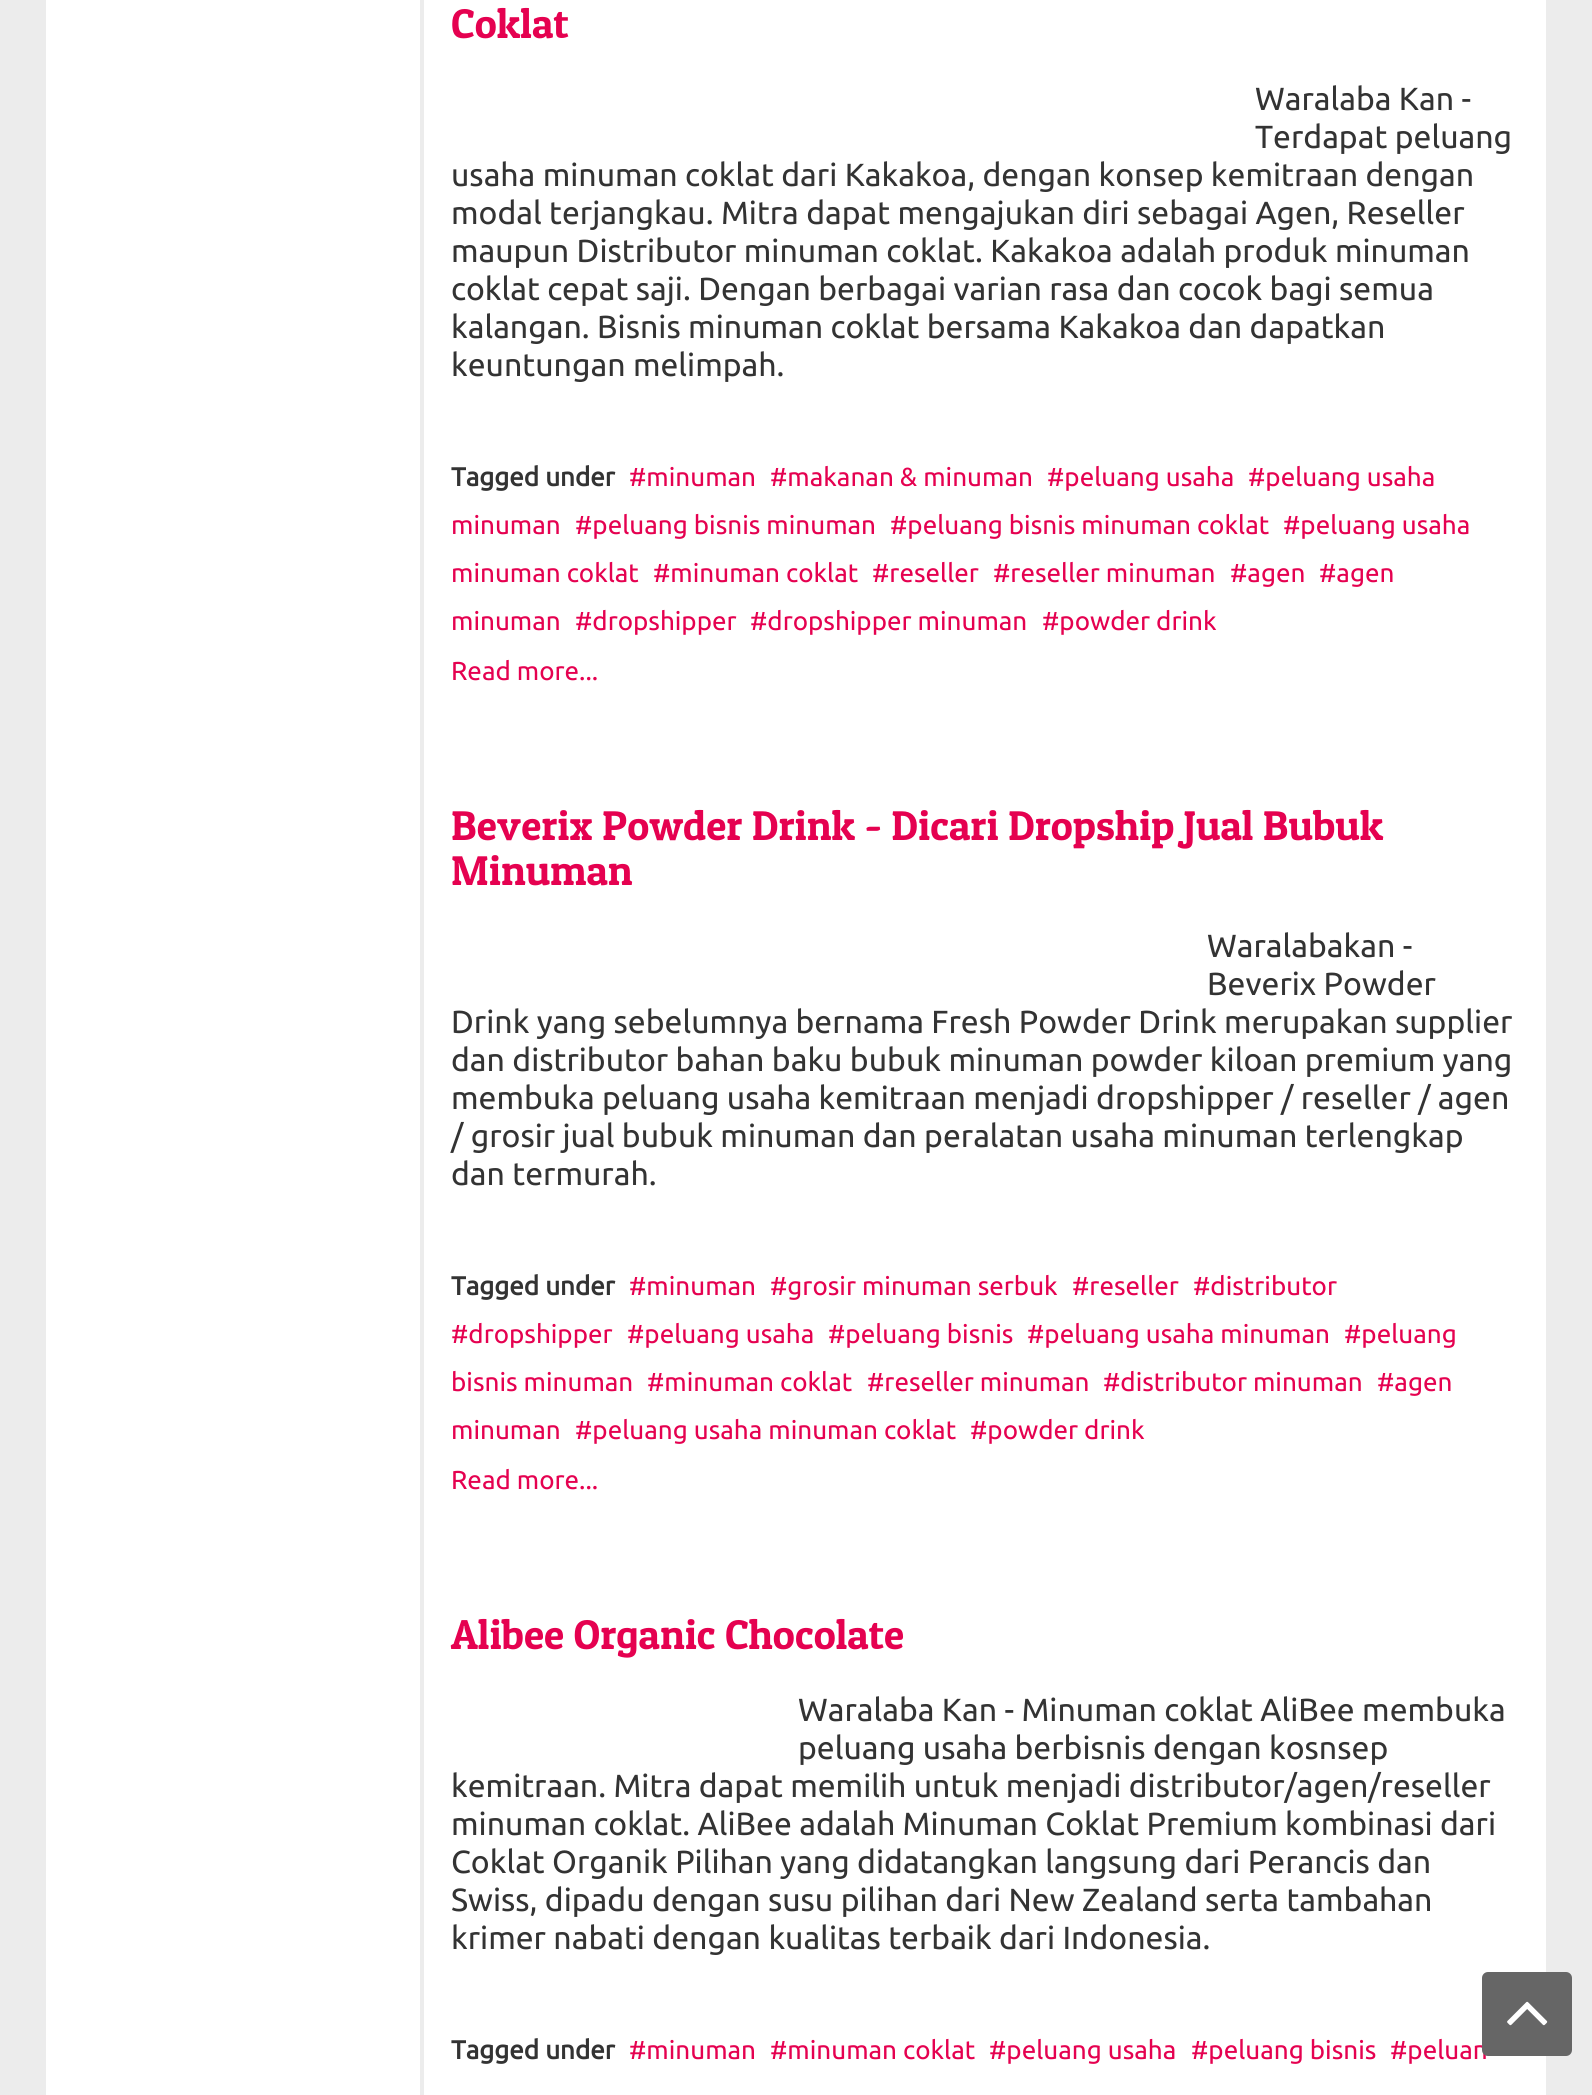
import math
import cairo

surface = cairo.ImageSurface(cairo.FORMAT_RGB24, 1592, 2095)
ctx = cairo.Context(surface)
options = cairo.FontOptions()
options.set_hint_metrics(cairo.HINT_METRICS_OFF)
options.set_hint_style(cairo.HINT_STYLE_NONE)
ctx.set_font_options(options)
ctx.set_miter_limit(4)


def set_color(code):
    ctx.set_source_rgb(*(v / 255 for v in bytes.fromhex(code[-6:])))


def draw_text(x, y, s, family, size, color, bold=False, italic=False):
    ctx.select_font_face(family, cairo.FONT_SLANT_ITALIC if italic else cairo.FONT_SLANT_NORMAL, cairo.FONT_WEIGHT_BOLD if bold else cairo.FONT_WEIGHT_NORMAL)
    ctx.set_font_size(size)
    set_color(color)
    ctx.move_to(x, y)
    ctx.show_text(s)


def fill_rect(x, y, w, h, color):
    set_color(color)
    ctx.rectangle(x, y, w, h)
    ctx.fill()


def rounded_rect(x, y, w, h, r):
    ctx.new_sub_path()
    for i, (u, v) in enumerate([(x + w - r, y + h - r), (x + r, y + h - r), (x + r, y + r), (x + w - r, y + r)]):
        ctx.arc(u, v, r, i * math.pi / 2, (i + 1) * math.pi / 2)
    ctx.close_path()


def draw_image(path, x, y, w, h):
    ctx.save()
    ctx.set_source_surface(cairo.ImageSurface.create_from_png(path), x, y)
    ctx.rectangle(x, y, w, h)
    ctx.fill()
    ctx.restore()


set_color("#ececec")
ctx.paint()
fill_rect(46, 0, 1500, 2095, "#ffffff")
fill_rect(420, 0, 4, 2095, "#ececec")
draw_text(451, 38, "Coklat", "Patua One", 41.6, "#e50150")
draw_text(1255, 110, "Waralaba Kan -", "Ubuntu", 32, "#333333")
draw_text(1255, 148, "Terdapat peluang", "Ubuntu", 32, "#333333")
draw_text(451, 186, "usaha minuman coklat dari Kakakoa, dengan konsep kemitraan dengan", "Ubuntu", 32, "#333333")
draw_text(451, 224, "modal terjangkau. Mitra dapat mengajukan diri sebagai Agen, Reseller", "Ubuntu", 32, "#333333")
draw_text(451, 262, "maupun Distributor minuman coklat. Kakakoa adalah produk minuman", "Ubuntu", 32, "#333333")
draw_text(451, 300, "coklat cepat saji. Dengan berbagai varian rasa dan cocok bagi semua", "Ubuntu", 32, "#333333")
draw_text(451, 338, "kalangan. Bisnis minuman coklat bersama Kakakoa dan dapatkan", "Ubuntu", 32, "#333333")
draw_text(451, 376, "keuntungan melimpah.", "Ubuntu", 32, "#333333")
draw_text(451, 486, "Tagged under", "Ubuntu", 26, "#333333", bold=True)
draw_text(629, 486, "#minuman", "Ubuntu", 26, "#e50150")
draw_text(770, 486, "#makanan & minuman", "Ubuntu", 26, "#e50150")
draw_text(1047, 486, "#peluang usaha", "Ubuntu", 26, "#e50150")
draw_text(1248, 486, "#peluang usaha", "Ubuntu", 26, "#e50150")
draw_text(451, 534, "minuman", "Ubuntu", 26, "#e50150")
draw_text(575, 534, "#peluang bisnis minuman", "Ubuntu", 26, "#e50150")
draw_text(890, 534, "#peluang bisnis minuman coklat", "Ubuntu", 26, "#e50150")
draw_text(1283, 534, "#peluang usaha", "Ubuntu", 26, "#e50150")
draw_text(451, 582, "minuman coklat", "Ubuntu", 26, "#e50150")
draw_text(653, 582, "#minuman coklat", "Ubuntu", 26, "#e50150")
draw_text(872, 582, "#reseller", "Ubuntu", 26, "#e50150")
draw_text(993, 582, "#reseller minuman", "Ubuntu", 26, "#e50150")
draw_text(1230, 582, "#agen", "Ubuntu", 26, "#e50150")
draw_text(1319, 582, "#agen", "Ubuntu", 26, "#e50150")
draw_text(451, 630, "minuman", "Ubuntu", 26, "#e50150")
draw_text(575, 630, "#dropshipper", "Ubuntu", 26, "#e50150")
draw_text(750, 630, "#dropshipper minuman", "Ubuntu", 26, "#e50150")
draw_text(1042, 630, "#powder drink", "Ubuntu", 26, "#e50150")
draw_text(451, 680, "Read more...", "Ubuntu", 26, "#e50150")
draw_text(451, 840, "Beverix Powder Drink - Dicari Dropship Jual Bubuk", "Patua One", 41.6, "#e50150")
draw_text(451, 885, "Minuman", "Patua One", 41.6, "#e50150")
draw_text(1207, 957, "Waralabakan -", "Ubuntu", 32, "#333333")
draw_text(1207, 995, "Beverix Powder", "Ubuntu", 32, "#333333")
draw_text(451, 1033, "Drink yang sebelumnya bernama Fresh Powder Drink merupakan supplier", "Ubuntu", 32, "#333333")
draw_text(451, 1071, "dan distributor bahan baku bubuk minuman powder kiloan premium yang", "Ubuntu", 32, "#333333")
draw_text(451, 1109, "membuka peluang usaha kemitraan menjadi dropshipper / reseller / agen", "Ubuntu", 32, "#333333")
draw_text(451, 1147, "/ grosir jual bubuk minuman dan peralatan usaha minuman terlengkap", "Ubuntu", 32, "#333333")
draw_text(451, 1185, "dan termurah.", "Ubuntu", 32, "#333333")
draw_text(451, 1295, "Tagged under", "Ubuntu", 26, "#333333", bold=True)
draw_text(629, 1295, "#minuman", "Ubuntu", 26, "#e50150")
draw_text(770, 1295, "#grosir minuman serbuk", "Ubuntu", 26, "#e50150")
draw_text(1072, 1295, "#reseller", "Ubuntu", 26, "#e50150")
draw_text(1193, 1295, "#distributor", "Ubuntu", 26, "#e50150")
draw_text(451, 1343, "#dropshipper", "Ubuntu", 26, "#e50150")
draw_text(627, 1343, "#peluang usaha", "Ubuntu", 26, "#e50150")
draw_text(828, 1343, "#peluang bisnis", "Ubuntu", 26, "#e50150")
draw_text(1027, 1343, "#peluang usaha minuman", "Ubuntu", 26, "#e50150")
draw_text(1344, 1343, "#peluang", "Ubuntu", 26, "#e50150")
draw_text(451, 1391, "bisnis minuman", "Ubuntu", 26, "#e50150")
draw_text(647, 1391, "#minuman coklat", "Ubuntu", 26, "#e50150")
draw_text(867, 1391, "#reseller minuman", "Ubuntu", 26, "#e50150")
draw_text(1103, 1391, "#distributor minuman", "Ubuntu", 26, "#e50150")
draw_text(1377, 1391, "#agen", "Ubuntu", 26, "#e50150")
draw_text(451, 1439, "minuman", "Ubuntu", 26, "#e50150")
draw_text(575, 1439, "#peluang usaha minuman coklat", "Ubuntu", 26, "#e50150")
draw_text(970, 1439, "#powder drink", "Ubuntu", 26, "#e50150")
draw_text(451, 1489, "Read more...", "Ubuntu", 26, "#e50150")
draw_text(451, 1649, "Alibee Organic Chocolate", "Patua One", 41.6, "#e50150")
draw_text(798, 1721, "Waralaba Kan - Minuman coklat AliBee membuka", "Ubuntu", 32, "#333333")
draw_text(798, 1759, "peluang usaha berbisnis dengan kosnsep", "Ubuntu", 32, "#333333")
draw_text(451, 1797, "kemitraan. Mitra dapat memilih untuk menjadi distributor/agen/reseller", "Ubuntu", 32, "#333333")
draw_text(451, 1835, "minuman coklat. AliBee adalah Minuman Coklat Premium kombinasi dari", "Ubuntu", 32, "#333333")
draw_text(451, 1873, "Coklat Organik Pilihan yang didatangkan langsung dari Perancis dan", "Ubuntu", 32, "#333333")
draw_text(451, 1911, "Swiss, dipadu dengan susu pilihan dari New Zealand serta tambahan", "Ubuntu", 32, "#333333")
draw_text(451, 1949, "krimer nabati dengan kualitas terbaik dari Indonesia.", "Ubuntu", 32, "#333333")
draw_text(451, 2059, "Tagged under", "Ubuntu", 26, "#333333", bold=True)
draw_text(629, 2059, "#minuman", "Ubuntu", 26, "#e50150")
draw_text(770, 2059, "#minuman coklat", "Ubuntu", 26, "#e50150")
draw_text(989, 2059, "#peluang usaha", "Ubuntu", 26, "#e50150")
draw_text(1191, 2059, "#peluang bisnis", "Ubuntu", 26, "#e50150")
draw_text(1390, 2059, "#peluan", "Ubuntu", 26, "#e50150")
set_color("#666666")
rounded_rect(1482, 1972, 90, 84, 6)
ctx.fill()
draw_image("assets/img1.png", 1507, 2001, 41, 25)
surface.write_to_png("output.png")
